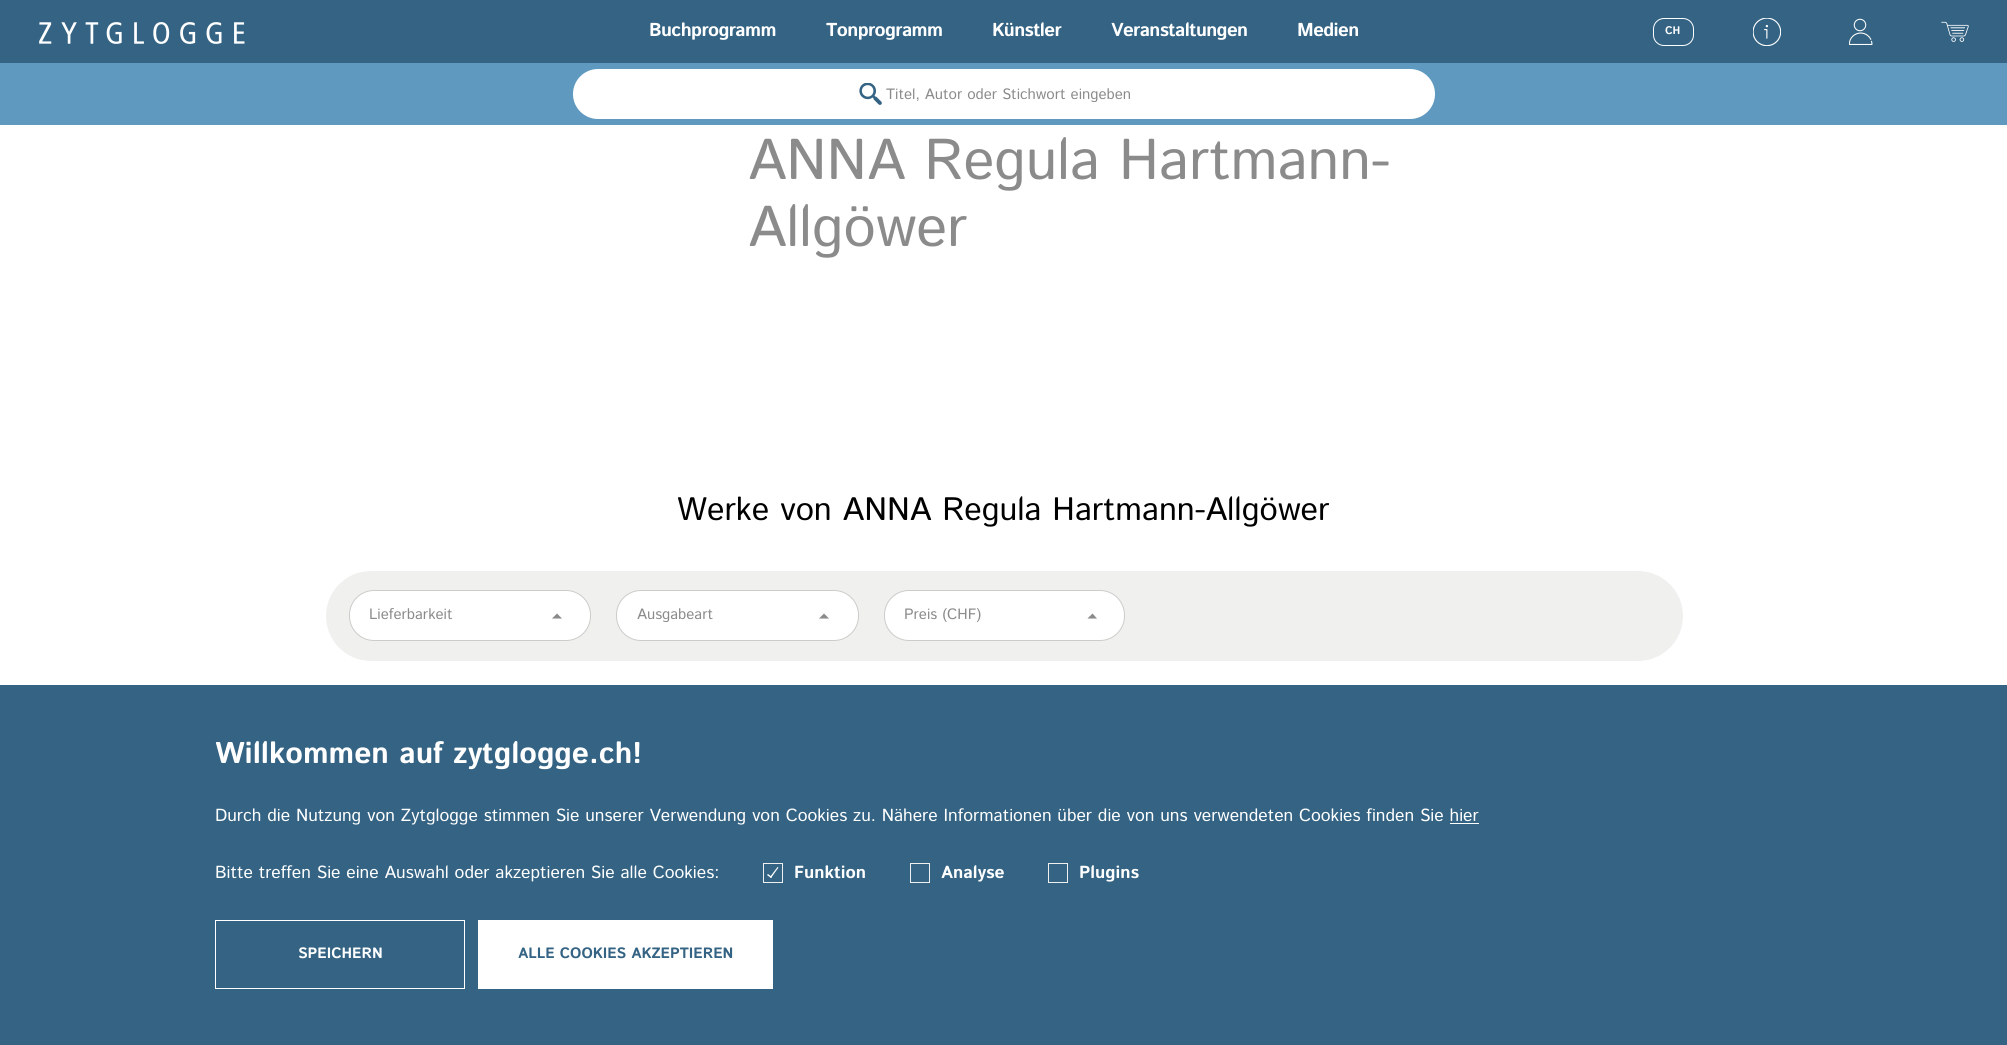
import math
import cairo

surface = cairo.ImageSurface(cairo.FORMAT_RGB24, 2007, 1045)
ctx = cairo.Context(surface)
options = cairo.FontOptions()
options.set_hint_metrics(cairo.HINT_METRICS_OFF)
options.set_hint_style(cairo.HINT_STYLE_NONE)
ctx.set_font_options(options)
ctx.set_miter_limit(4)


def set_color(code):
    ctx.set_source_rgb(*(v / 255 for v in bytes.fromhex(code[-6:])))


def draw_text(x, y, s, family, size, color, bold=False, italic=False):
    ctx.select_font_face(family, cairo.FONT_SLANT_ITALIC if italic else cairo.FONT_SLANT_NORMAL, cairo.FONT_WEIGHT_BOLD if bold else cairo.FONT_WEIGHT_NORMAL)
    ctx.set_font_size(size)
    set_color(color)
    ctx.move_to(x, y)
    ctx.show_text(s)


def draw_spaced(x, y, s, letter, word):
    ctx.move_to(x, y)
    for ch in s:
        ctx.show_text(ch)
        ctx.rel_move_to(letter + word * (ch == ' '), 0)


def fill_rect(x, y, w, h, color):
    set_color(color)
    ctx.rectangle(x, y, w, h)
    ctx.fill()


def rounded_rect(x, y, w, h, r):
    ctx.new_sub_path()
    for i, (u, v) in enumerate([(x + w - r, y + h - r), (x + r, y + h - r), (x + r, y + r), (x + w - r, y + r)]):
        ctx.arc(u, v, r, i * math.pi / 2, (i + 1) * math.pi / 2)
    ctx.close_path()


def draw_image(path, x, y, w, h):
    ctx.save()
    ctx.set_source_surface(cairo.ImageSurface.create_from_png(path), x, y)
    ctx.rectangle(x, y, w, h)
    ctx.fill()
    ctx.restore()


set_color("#ffffff")
ctx.paint()
fill_rect(0, 0, 2007, 63, "#346384")
draw_image("assets/img1.png", 39, 22, 206, 22)
ctx.select_font_face("Istok Web", cairo.FONT_SLANT_NORMAL, cairo.FONT_WEIGHT_BOLD)
ctx.set_font_size(18.75)
set_color("#ffffff")
draw_spaced(649, 36, "Buchprogramm", -0.6, 0)
draw_spaced(826, 36, "Tonprogramm", -0.6, 0)
draw_spaced(992, 36, "Künstler", -0.6, 0)
draw_spaced(1111, 36, "Veranstaltungen", -0.6, 0)
draw_spaced(1297, 36, "Medien", -0.6, 0)
rounded_rect(1653.5, 18.5, 40, 27, 10.5)
ctx.set_line_width(1)
ctx.stroke()
draw_text(1665, 34, "CH", "Istok Web", 11, "#ffffff", bold=True)
draw_image("assets/img2.png", 1753, 18, 28, 28)
draw_image("assets/img3.png", 1849, 18, 24, 27)
draw_image("assets/img4.png", 1941, 21, 28, 21)
fill_rect(0, 63, 2007, 62, "#6099c0")
set_color("#ffffff")
rounded_rect(573, 69, 862, 50, 25)
ctx.fill()
draw_image("assets/img5.png", 859, 83, 23, 22)
draw_text(886, 99, "Titel, Autor oder Stichwort eingeben", "Istok Web", 15, "#8b8b8b")
draw_text(748, 179, "ANNA Regula Hartmann-", "Istok Web", 57.5, "#8b8b8b")
draw_text(748, 246, "Allgöwer", "Istok Web", 57.5, "#8b8b8b")
draw_text(677, 520, "Werke von ANNA Regula Hartmann-Allgöwer", "Istok Web", 32.5, "#000000")
set_color("#f0f0ef")
rounded_rect(326, 571, 1357, 90, 45)
ctx.fill()
set_color("#ffffff")
rounded_rect(349.5, 590.5, 241, 50, 24.5)
ctx.fill_preserve()
set_color("#ceccca")
ctx.stroke()
draw_text(369, 619, "Lieferbarkeit", "Istok Web", 15, "#8b8b8b")
ctx.new_path()
ctx.move_to(562, 618.5)
ctx.line_to(557, 613.5)
ctx.line_to(552, 618.5)
ctx.close_path()
ctx.fill()
set_color("#ffffff")
rounded_rect(616.5, 590.5, 242, 50, 24.5)
ctx.fill_preserve()
set_color("#ceccca")
ctx.stroke()
draw_text(637, 619, "Ausgabeart", "Istok Web", 15, "#8b8b8b")
ctx.new_path()
ctx.move_to(829, 618.5)
ctx.line_to(824, 613.5)
ctx.line_to(819, 618.5)
ctx.close_path()
ctx.fill()
set_color("#ffffff")
rounded_rect(884.5, 590.5, 240, 50, 24.5)
ctx.fill_preserve()
set_color("#ceccca")
ctx.stroke()
draw_text(904, 619, "Preis (CHF)", "Istok Web", 15, "#8b8b8b")
ctx.new_path()
ctx.move_to(1097, 618.5)
ctx.line_to(1092.5, 613.5)
ctx.line_to(1087.5, 618.5)
ctx.close_path()
ctx.fill()
fill_rect(0, 685, 2007, 360, "#346384")
draw_text(215, 763, "Willkommen auf zytglogge.ch!", "Istok Web", 30, "#ffffff", bold=True)
draw_text(215, 821, "Durch die Nutzung von Zytglogge stimmen Sie unserer Verwendung von Cookies zu. Nähere Informationen über die von uns verwendeten Cookies finden Sie hier", "Istok Web", 17.5, "#ffffff")
fill_rect(1450, 823, 29, 1, "#ffffff")
draw_text(215, 878, "Bitte treffen Sie eine Auswahl oder akzeptieren Sie alle Cookies:", "Istok Web", 17.5, "#ffffff")
ctx.rectangle(763.5, 863.5, 19, 19)
set_color("#f0f0ef")
ctx.stroke()
draw_text(794, 878, "Funktion", "Istok Web", 17.5, "#ffffff", bold=True)
ctx.new_path()
ctx.move_to(770, 877)
ctx.line_to(777.5, 867)
ctx.line_to(778.5, 867.5)
ctx.line_to(771, 878)
ctx.close_path()
ctx.fill()
ctx.new_path()
ctx.move_to(767, 875)
ctx.line_to(768, 874)
ctx.line_to(772, 877)
ctx.line_to(771, 878)
ctx.close_path()
ctx.fill()
ctx.rectangle(910.5, 863.5, 19, 19)
set_color("#f0f0ef")
ctx.stroke()
draw_text(941, 878, "Analyse", "Istok Web", 17.5, "#ffffff", bold=True)
ctx.rectangle(1048.5, 863.5, 19, 19)
set_color("#f0f0ef")
ctx.stroke()
draw_text(1079, 878, "Plugins", "Istok Web", 17.5, "#ffffff", bold=True)
ctx.rectangle(215.5, 920.5, 249, 68)
ctx.stroke()
draw_text(298, 958, "SPEICHERN", "Istok Web", 15, "#ffffff", bold=True)
fill_rect(478, 920, 295, 69, "#ffffff")
draw_text(518, 958, "ALLE COOKIES AKZEPTIEREN", "Istok Web", 15, "#346384", bold=True)
surface.write_to_png("output.png")
